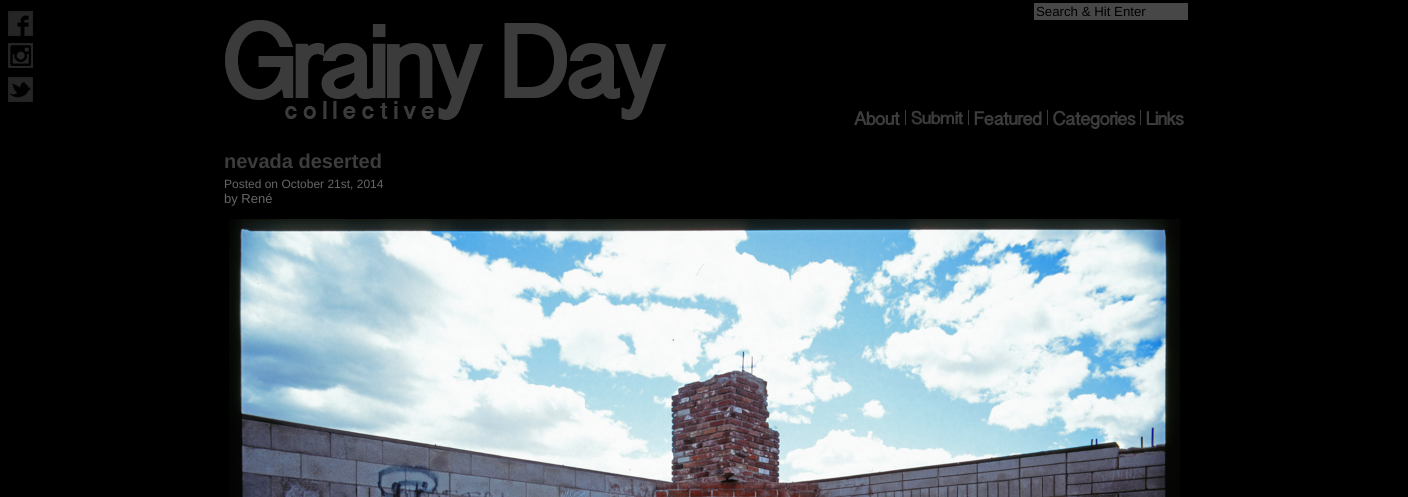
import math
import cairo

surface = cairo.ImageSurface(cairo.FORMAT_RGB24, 1408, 497)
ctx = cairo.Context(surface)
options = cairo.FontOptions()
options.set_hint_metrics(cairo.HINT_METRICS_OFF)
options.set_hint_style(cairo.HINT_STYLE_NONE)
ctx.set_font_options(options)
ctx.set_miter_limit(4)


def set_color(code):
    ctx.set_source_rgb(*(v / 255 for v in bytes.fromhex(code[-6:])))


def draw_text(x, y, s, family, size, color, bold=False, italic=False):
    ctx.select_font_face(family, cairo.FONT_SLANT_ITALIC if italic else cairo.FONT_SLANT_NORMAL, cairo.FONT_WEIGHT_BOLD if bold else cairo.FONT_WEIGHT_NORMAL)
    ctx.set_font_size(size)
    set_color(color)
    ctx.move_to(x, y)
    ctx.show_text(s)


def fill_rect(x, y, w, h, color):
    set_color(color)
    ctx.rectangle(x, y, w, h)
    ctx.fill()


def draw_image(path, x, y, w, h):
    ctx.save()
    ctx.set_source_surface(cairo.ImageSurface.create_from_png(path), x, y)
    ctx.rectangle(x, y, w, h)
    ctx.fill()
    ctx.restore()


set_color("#000000")
ctx.paint()
draw_image("assets/img1.png", 8, 11, 25, 25)
draw_image("assets/img2.png", 8, 43, 25, 25)
draw_image("assets/img3.png", 8, 77, 25, 25)
fill_rect(1034, 3, 154, 17, "#474747")
draw_text(1036, 16, "Search & Hit Enter", "Liberation Sans", 13.25, "#000000")
draw_image("assets/img4.png", 225, 20, 441, 100)
draw_image("assets/img5.png", 854, 111, 46, 15)
fill_rect(905, 110, 1, 15, "#3c3c3c")
draw_image("assets/img6.png", 911, 110, 53, 15)
fill_rect(968, 110, 1, 15, "#3c3c3c")
draw_image("assets/img7.png", 974, 111, 68, 15)
fill_rect(1047, 110, 1, 15, "#3c3c3c")
draw_image("assets/img8.png", 1053, 110, 83, 19)
fill_rect(1140, 110, 1, 15, "#3c3c3c")
draw_image("assets/img9.png", 1146, 111, 38, 15)
draw_text(224, 168, "nevada deserted", "Liberation Sans", 20, "#3c3c3c", bold=True)
draw_text(224, 188, "Posted on October 21st, 2014", "Liberation Sans", 12, "#666666")
draw_text(224, 203, "by René", "Liberation Sans", 13, "#666666")
draw_image("assets/img10.png", 229, 219, 951, 278)
surface.write_to_png("output.png")
